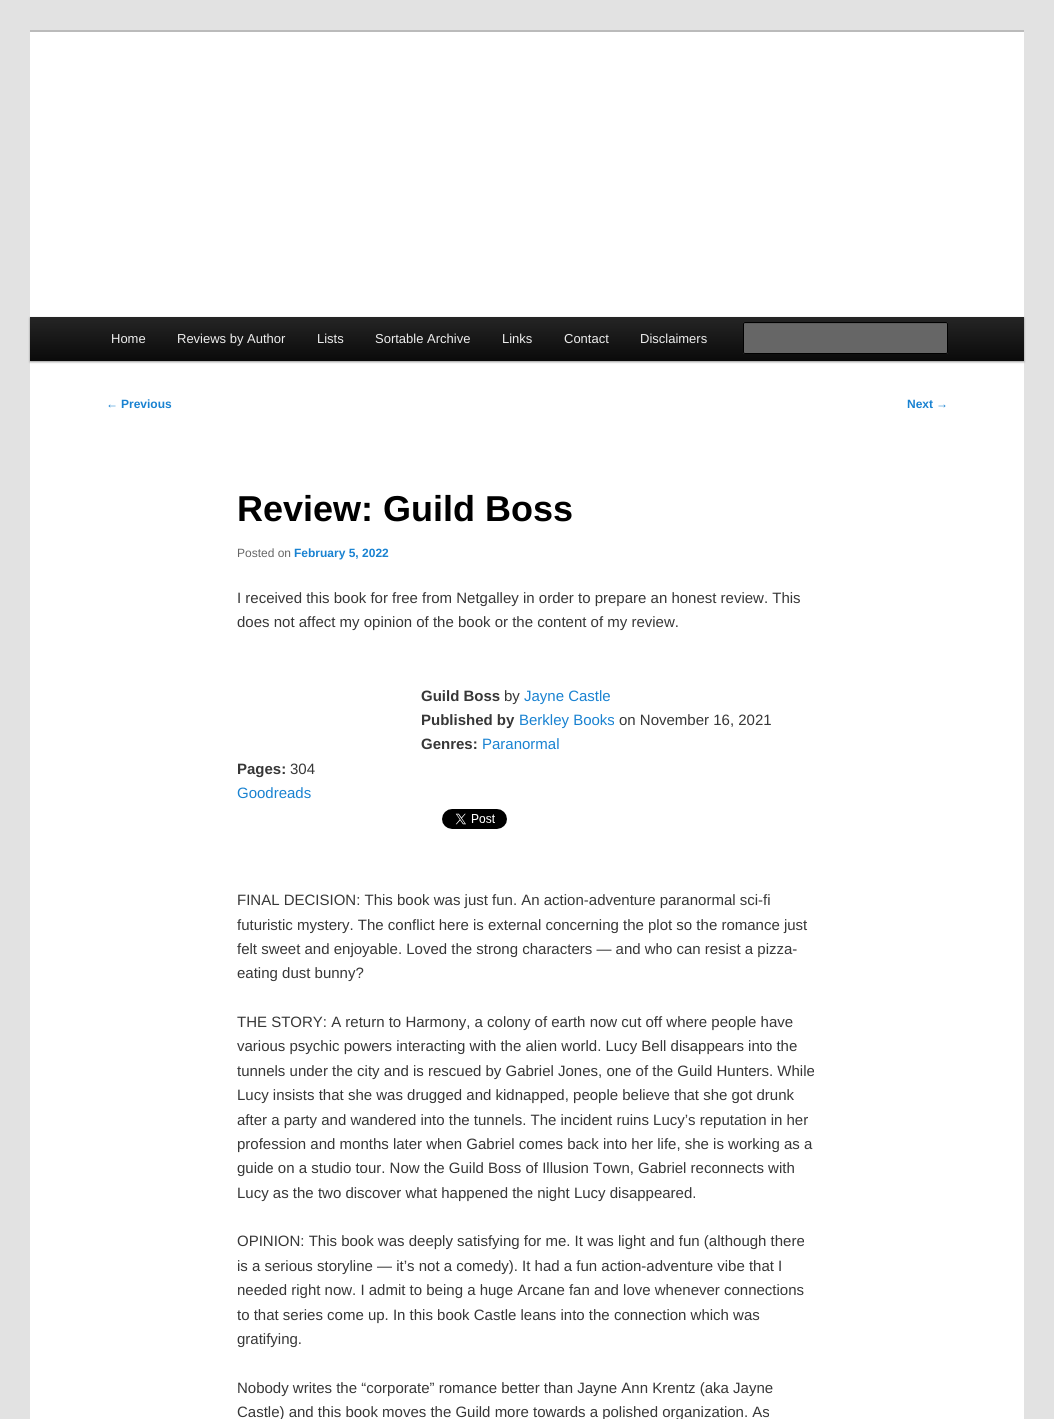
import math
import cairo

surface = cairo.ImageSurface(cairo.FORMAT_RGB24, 1054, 1419)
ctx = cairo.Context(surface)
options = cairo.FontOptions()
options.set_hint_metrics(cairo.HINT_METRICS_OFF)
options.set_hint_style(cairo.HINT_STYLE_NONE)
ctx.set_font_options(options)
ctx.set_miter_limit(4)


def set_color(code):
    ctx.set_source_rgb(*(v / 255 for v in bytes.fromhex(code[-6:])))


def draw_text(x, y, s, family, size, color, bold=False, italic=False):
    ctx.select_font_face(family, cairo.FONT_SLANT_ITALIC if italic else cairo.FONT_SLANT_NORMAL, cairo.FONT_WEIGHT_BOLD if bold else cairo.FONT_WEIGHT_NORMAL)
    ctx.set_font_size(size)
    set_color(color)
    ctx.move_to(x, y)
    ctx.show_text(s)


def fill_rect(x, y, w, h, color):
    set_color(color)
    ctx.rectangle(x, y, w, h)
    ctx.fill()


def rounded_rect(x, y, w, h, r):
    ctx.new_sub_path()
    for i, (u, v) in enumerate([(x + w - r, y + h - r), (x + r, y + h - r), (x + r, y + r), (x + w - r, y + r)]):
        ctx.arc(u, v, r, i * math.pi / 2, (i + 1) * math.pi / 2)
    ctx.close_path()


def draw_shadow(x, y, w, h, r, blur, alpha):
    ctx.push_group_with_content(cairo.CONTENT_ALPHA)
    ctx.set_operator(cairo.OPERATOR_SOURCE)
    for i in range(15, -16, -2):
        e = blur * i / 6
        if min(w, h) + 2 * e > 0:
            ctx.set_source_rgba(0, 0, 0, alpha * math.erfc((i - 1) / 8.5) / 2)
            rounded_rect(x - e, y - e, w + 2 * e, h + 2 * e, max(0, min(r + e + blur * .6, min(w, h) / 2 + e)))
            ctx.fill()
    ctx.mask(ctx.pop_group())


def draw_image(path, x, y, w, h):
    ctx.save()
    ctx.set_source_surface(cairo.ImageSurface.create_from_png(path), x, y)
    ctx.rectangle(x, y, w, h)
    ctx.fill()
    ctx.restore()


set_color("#e2e2e2")
ctx.paint()
fill_rect(30, 32, 994, 1387, "#ffffff")
fill_rect(30, 30, 994, 2, "#bbbbbb")
set_color("#000000")
draw_shadow(30, 318, 994, 44, 0, 1, 0.4)
gradient = cairo.LinearGradient(527, 317, 527, 361)
gradient.add_color_stop_rgba(0, 0.145, 0.145, 0.145, 1)
gradient.add_color_stop_rgba(1, 0.039, 0.039, 0.039, 1)
ctx.set_source(gradient)
ctx.rectangle(30, 317, 994, 44)
ctx.fill()
draw_text(111, 343, "Home", "Liberation Sans", 13, "#eeeeee")
draw_text(177, 343, "Reviews by Author", "Liberation Sans", 13, "#eeeeee")
draw_text(317, 343, "Lists", "Liberation Sans", 13, "#eeeeee")
draw_text(375, 343, "Sortable Archive", "Liberation Sans", 13, "#eeeeee")
draw_text(502, 343, "Links", "Liberation Sans", 13, "#eeeeee")
draw_text(564, 343, "Contact", "Liberation Sans", 13, "#eeeeee")
draw_text(640, 343, "Disclaimers", "Liberation Sans", 13, "#eeeeee")
set_color("#666666")
rounded_rect(743, 322, 205, 32, 2)
ctx.fill()
set_color("#5c5c5c")
ctx.new_path()
ctx.move_to(745, 324)
ctx.line_to(947, 324)
ctx.line_to(947, 325)
ctx.curve_to(947, 324, 947, 323, 946, 323)
ctx.line_to(745, 323)
ctx.line_to(744, 323)
ctx.line_to(744, 325)
ctx.curve_to(744, 324, 744, 324, 745, 324)
ctx.close_path()
ctx.fill()
rounded_rect(743.5, 322.5, 204, 31, 1.5)
set_color("#000000")
ctx.set_line_width(1)
ctx.stroke()
draw_text(106, 408, "←", "Liberation Sans", 12, "#1982d1")
draw_text(121, 408, "Previous", "Liberation Sans", 12, "#1982d1", bold=True)
draw_text(907, 408, "Next", "Liberation Sans", 12, "#1982d1", bold=True)
draw_text(936, 408, "→", "Liberation Sans", 12, "#1982d1")
draw_text(237, 521, "Review: Guild Boss", "Liberation Sans", 36, "#000000", bold=True)
draw_text(237, 557, "Posted on", "Liberation Sans", 12, "#666666")
draw_text(294, 557, "February 5, 2022", "Liberation Sans", 12, "#1982d1", bold=True)
draw_text(237, 603, "I received this book for free from Netgalley in order to prepare an honest review. This", "Liberation Sans", 15, "#373737")
draw_text(237, 627, "does not affect my opinion of the book or the content of my review.", "Liberation Sans", 15, "#373737")
draw_text(421, 701, "Guild Boss", "Liberation Sans", 15, "#373737", bold=True)
draw_text(504, 701, "by", "Liberation Sans", 15, "#373737")
draw_text(524, 701, "Jayne Castle", "Liberation Sans", 15, "#1982d1")
draw_text(421, 725, "Published by", "Liberation Sans", 15, "#373737", bold=True)
draw_text(519, 725, "Berkley Books", "Liberation Sans", 15, "#1982d1")
draw_text(619, 725, "on November 16, 2021", "Liberation Sans", 15, "#373737")
draw_text(421, 749, "Genres:", "Liberation Sans", 15, "#373737", bold=True)
draw_text(482, 749, "Paranormal", "Liberation Sans", 15, "#1982d1")
draw_text(237, 774, "Pages:", "Liberation Sans", 15, "#373737", bold=True)
draw_text(290, 774, "304", "Liberation Sans", 15, "#373737")
draw_text(237, 798, "Goodreads", "Liberation Sans", 15, "#1982d1")
draw_image("assets/img1.png", 442, 809, 65, 20)
draw_text(237, 905, "FINAL DECISION: This book was just fun. An action-adventure paranormal sci-fi", "Liberation Sans", 15, "#373737")
draw_text(237, 930, "futuristic mystery. The conflict here is external concerning the plot so the romance just", "Liberation Sans", 15, "#373737")
draw_text(237, 954, "felt sweet and enjoyable. Loved the strong characters — and who can resist a pizza-", "Liberation Sans", 15, "#373737")
draw_text(237, 978, "eating dust bunny?", "Liberation Sans", 15, "#373737")
draw_text(237, 1027, "THE STORY: A return to Harmony, a colony of earth now cut off where people have", "Liberation Sans", 15, "#373737")
draw_text(237, 1051, "various psychic powers interacting with the alien world. Lucy Bell disappears into the", "Liberation Sans", 15, "#373737")
draw_text(237, 1076, "tunnels under the city and is rescued by Gabriel Jones, one of the Guild Hunters. While", "Liberation Sans", 15, "#373737")
draw_text(237, 1100, "Lucy insists that she was drugged and kidnapped, people believe that she got drunk", "Liberation Sans", 15, "#373737")
draw_text(237, 1125, "after a party and wandered into the tunnels. The incident ruins Lucy’s reputation in her", "Liberation Sans", 15, "#373737")
draw_text(237, 1149, "profession and months later when Gabriel comes back into her life, she is working as a", "Liberation Sans", 15, "#373737")
draw_text(237, 1173, "guide on a studio tour. Now the Guild Boss of Illusion Town, Gabriel reconnects with", "Liberation Sans", 15, "#373737")
draw_text(237, 1198, "Lucy as the two discover what happened the night Lucy disappeared.", "Liberation Sans", 15, "#373737")
draw_text(237, 1246, "OPINION: This book was deeply satisfying for me. It was light and fun (although there", "Liberation Sans", 15, "#373737")
draw_text(237, 1271, "is a serious storyline — it’s not a comedy). It had a fun action-adventure vibe that I", "Liberation Sans", 15, "#373737")
draw_text(237, 1295, "needed right now. I admit to being a huge Arcane fan and love whenever connections", "Liberation Sans", 15, "#373737")
draw_text(237, 1320, "to that series come up. In this book Castle leans into the connection which was", "Liberation Sans", 15, "#373737")
draw_text(237, 1344, "gratifying.", "Liberation Sans", 15, "#373737")
draw_text(237, 1393, "Nobody writes the “corporate” romance better than Jayne Ann Krentz (aka Jayne", "Liberation Sans", 15, "#373737")
draw_text(237, 1417, "Castle) and this book moves the Guild more towards a polished organization. As", "Liberation Sans", 15, "#373737")
surface.write_to_png("output.png")
